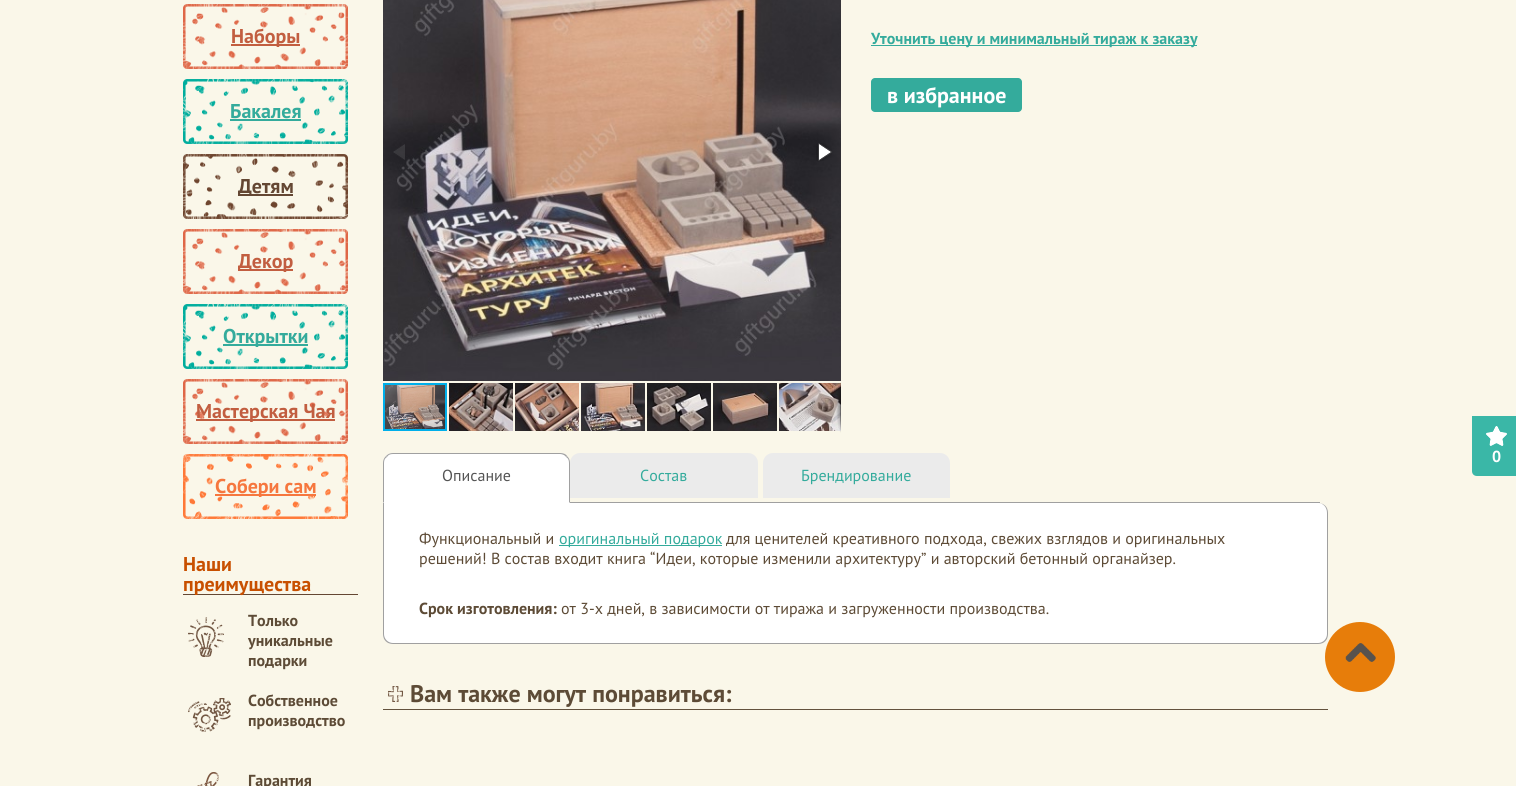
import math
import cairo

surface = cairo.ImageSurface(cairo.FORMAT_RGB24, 1516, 786)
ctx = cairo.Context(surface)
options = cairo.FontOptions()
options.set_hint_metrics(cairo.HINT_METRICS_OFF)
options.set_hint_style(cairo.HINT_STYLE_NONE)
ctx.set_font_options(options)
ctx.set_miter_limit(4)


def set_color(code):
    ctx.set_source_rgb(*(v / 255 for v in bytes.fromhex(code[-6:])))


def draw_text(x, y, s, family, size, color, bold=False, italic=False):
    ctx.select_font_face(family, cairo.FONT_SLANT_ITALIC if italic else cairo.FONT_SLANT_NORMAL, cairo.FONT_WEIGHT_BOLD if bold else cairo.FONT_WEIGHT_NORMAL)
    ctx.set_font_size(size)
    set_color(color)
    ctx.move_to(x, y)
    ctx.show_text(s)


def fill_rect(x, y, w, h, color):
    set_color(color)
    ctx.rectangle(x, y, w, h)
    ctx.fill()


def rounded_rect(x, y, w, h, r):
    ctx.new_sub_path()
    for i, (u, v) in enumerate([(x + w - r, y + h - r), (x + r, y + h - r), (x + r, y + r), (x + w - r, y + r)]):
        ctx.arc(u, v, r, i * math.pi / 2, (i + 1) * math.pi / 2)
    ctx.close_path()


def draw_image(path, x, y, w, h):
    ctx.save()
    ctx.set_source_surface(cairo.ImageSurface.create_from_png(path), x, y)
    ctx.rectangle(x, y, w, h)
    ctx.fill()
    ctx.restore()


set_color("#faf7e9")
ctx.paint()
draw_image("assets/img1.png", 183, 4, 165, 65)
fill_rect(231, 44, 69, 2, "#c25e40")
draw_text(231, 43, "Наборы", "PT Sans", 20, "#c25e40", bold=True)
draw_image("assets/img2.png", 183, 79, 165, 65)
draw_text(230, 118, "Бакалея", "PT Sans", 20, "#34ab9c", bold=True)
fill_rect(230, 119, 71, 2, "#34ab9c")
draw_image("assets/img3.png", 183, 154, 165, 65)
fill_rect(238, 194, 55, 2, "#644733")
draw_text(238, 193, "Детям", "PT Sans", 20, "#644733", bold=True)
draw_image("assets/img1.png", 183, 229, 165, 65)
fill_rect(238, 269, 55, 2, "#c25e40")
draw_text(238, 268, "Декор", "PT Sans", 20, "#c25e40", bold=True)
draw_image("assets/img2.png", 183, 304, 165, 65)
fill_rect(223, 344, 85, 2, "#34ab9c")
draw_text(223, 343, "Открытки", "PT Sans", 20, "#34ab9c", bold=True)
draw_image("assets/img1.png", 183, 379, 165, 65)
fill_rect(196, 419, 139, 2, "#c25e40")
draw_text(196, 418, "Мастерская Чая", "PT Sans", 20, "#c25e40", bold=True)
draw_image("assets/img4.png", 183, 454, 165, 65)
fill_rect(215, 494, 101, 2, "#f6773e")
draw_text(215, 493, "Собери сам", "PT Sans", 20, "#f6773e", bold=True)
fill_rect(183, 594, 175, 1, "#644733")
draw_text(183, 571, "Наши", "PT Sans", 20, "#c85000", bold=True)
draw_text(183, 591, "преимущества", "PT Sans", 20, "#c85000", bold=True)
draw_image("assets/img5.png", 188, 617, 36, 40)
draw_text(248, 626, "Только", "PT Sans", 16, "#5d4b36", bold=True)
draw_text(248, 646, "уникальные", "PT Sans", 16, "#5d4b36", bold=True)
draw_text(248, 666, "подарки", "PT Sans", 16, "#5d4b36", bold=True)
draw_image("assets/img6.png", 188, 698, 43, 34)
draw_text(248, 706, "Собственное", "PT Sans", 16, "#5d4b36", bold=True)
draw_text(248, 726, "производство", "PT Sans", 16, "#5d4b36", bold=True)
draw_image("assets/img7.png", 197, 772, 22, 14)
draw_text(248, 786, "Гарантия", "PT Sans", 16, "#5d4b36", bold=True)
draw_image("assets/img8.png", 383, 0, 458, 381)
draw_image("assets/img9.png", 393, 144, 12, 16)
draw_image("assets/img10.png", 816, 143, 16, 18)
draw_image("assets/img16.png", 779, 383, 62, 48)
gradient = cairo.RadialGradient(0, 0, 0, 0, 0, 1)
gradient.set_matrix(cairo.Matrix(1 / 5, 0, 0, 1 / 26, -1 * 841 / 5, -1 * 407 / 26))
gradient.add_color_stop_rgba(0, 0, 0, 0, 0.4)
gradient.add_color_stop_rgba(1, 0, 0, 0, 0)
ctx.set_source(gradient)
ctx.rectangle(836, 381, 5, 52)
ctx.fill()
gradient = cairo.LinearGradient(841, 381, 841, 433)
gradient.add_color_stop_rgba(0, 0, 0, 0, 0)
gradient.add_color_stop_rgba(0.25, 0, 0, 0, 0.2)
gradient.add_color_stop_rgba(0.75, 0, 0, 0, 0.3)
gradient.add_color_stop_rgba(1, 0, 0, 0, 0)
ctx.set_source(gradient)
ctx.rectangle(840, 381, 1, 52)
ctx.fill()
draw_image("assets/img17.png", 385, 385, 60, 44)
ctx.rectangle(384, 384, 62, 46)
set_color("#00afea")
ctx.stroke()
draw_image("assets/img11.png", 449, 383, 64, 48)
draw_image("assets/img12.png", 515, 383, 64, 48)
draw_image("assets/img13.png", 581, 383, 64, 48)
draw_image("assets/img14.png", 647, 383, 64, 48)
draw_image("assets/img15.png", 713, 383, 64, 48)
fill_rect(871, 45, 326, 1, "#34ab9c")
draw_text(871, 44, "Уточнить цену и минимальный тираж к заказу", "PT Sans", 16, "#34ab9c", bold=True)
rounded_rect(871, 78, 151, 34, 4)
ctx.fill()
draw_text(887, 103, "в избранное", "PT Sans", 22, "#ffffff", bold=True)
fill_rect(570, 502, 750, 1, "#a0a0a0")
set_color("#ffffff")
ctx.new_path()
ctx.move_to(393, 453)
ctx.line_to(560, 453)
ctx.curve_to(565.5, 453, 570, 457.5, 570, 463)
ctx.line_to(570, 503)
ctx.line_to(383, 503)
ctx.line_to(383, 463)
ctx.curve_to(383, 457.5, 387.5, 453, 393, 453)
ctx.close_path()
ctx.fill()
set_color("#a0a0a0")
ctx.new_path()
ctx.move_to(393, 453)
ctx.curve_to(390, 453, 388, 454, 386, 456)
ctx.line_to(387, 457)
ctx.curve_to(388, 455, 390, 454, 393, 454)
ctx.line_to(560, 454)
ctx.curve_to(562, 454, 565, 455, 566, 457)
ctx.line_to(567, 456)
ctx.curve_to(566, 454, 563, 453, 560, 453)
ctx.close_path()
ctx.fill()
ctx.new_path()
ctx.move_to(570, 503)
ctx.line_to(570, 463)
ctx.curve_to(570, 460, 569, 458, 567, 456)
ctx.line_to(566, 457)
ctx.curve_to(568, 458, 569, 460, 569, 463)
ctx.line_to(569, 502)
ctx.close_path()
ctx.fill()
ctx.new_path()
ctx.move_to(383, 503)
ctx.line_to(384, 502)
ctx.line_to(384, 463)
ctx.curve_to(384, 460, 385, 458, 387, 457)
ctx.line_to(386, 456)
ctx.curve_to(384, 458, 383, 460, 383, 463)
ctx.close_path()
ctx.fill()
draw_text(442, 481, "Описание", "PT Sans", 16, "#555555")
set_color("#ebebeb")
ctx.new_path()
ctx.move_to(580, 453)
ctx.line_to(748, 453)
ctx.curve_to(753.5, 453, 758, 457.5, 758, 463)
ctx.line_to(758, 498)
ctx.line_to(570, 498)
ctx.line_to(570, 463)
ctx.curve_to(570, 457.5, 574.5, 453, 580, 453)
ctx.close_path()
ctx.fill()
draw_text(640, 481, "Состав", "PT Sans", 16, "#34ab9c")
set_color("#ebebeb")
ctx.new_path()
ctx.move_to(773, 453)
ctx.line_to(940, 453)
ctx.curve_to(945.5, 453, 950, 457.5, 950, 463)
ctx.line_to(950, 498)
ctx.line_to(763, 498)
ctx.line_to(763, 463)
ctx.curve_to(763, 457.5, 767.5, 453, 773, 453)
ctx.close_path()
ctx.fill()
draw_text(801, 481, "Брендирование", "PT Sans", 16, "#34ab9c")
set_color("#ffffff")
ctx.new_path()
ctx.move_to(383, 503)
ctx.line_to(1318, 503)
ctx.curve_to(1323.5, 503, 1328, 507.5, 1328, 513)
ctx.line_to(1328, 634)
ctx.curve_to(1328, 639.5, 1323.5, 644, 1318, 644)
ctx.line_to(393, 644)
ctx.curve_to(387.5, 644, 383, 639.5, 383, 634)
ctx.close_path()
ctx.fill()
set_color("#a0a0a0")
ctx.set_fill_rule(cairo.FILL_RULE_EVEN_ODD)
ctx.new_path()
ctx.move_to(383, 503)
ctx.line_to(1318, 503)
ctx.curve_to(1324, 503, 1328, 507, 1328, 513)
ctx.line_to(1328, 634)
ctx.curve_to(1328, 640, 1324, 644, 1318, 644)
ctx.line_to(393, 644)
ctx.curve_to(387, 644, 383, 640, 383, 634)
ctx.close_path()
ctx.move_to(384, 503)
ctx.line_to(1318, 503)
ctx.curve_to(1323, 503, 1327, 507, 1327, 513)
ctx.line_to(1327, 634)
ctx.curve_to(1327, 639, 1323, 643, 1318, 643)
ctx.line_to(393, 643)
ctx.curve_to(388, 643, 384, 639, 384, 634)
ctx.close_path()
ctx.fill()
draw_text(419, 544, "Функциональный и", "PT Sans", 16, "#5d4b36")
fill_rect(559, 545, 163, 1, "#34ab9c")
draw_text(559, 544, "оригинальный подарок", "PT Sans", 16, "#34ab9c")
draw_text(726, 544, "для ценителей креативного подхода, свежих взглядов и оригинальных", "PT Sans", 16, "#5d4b36")
draw_text(419, 564, "решений! В состав входит книга “Идеи, которые изменили архитектуру” и авторский бетонный органайзер.", "PT Sans", 16, "#5d4b36")
draw_text(419, 614, "Срок изготовления:", "PT Sans", 16, "#5d4b36", bold=True)
draw_text(561, 614, "от 3-х дней, в зависимости от тиража и загруженности производства.", "PT Sans", 16, "#5d4b36")
fill_rect(383, 709, 945, 1, "#63523d")
draw_image("assets/img18.png", 388, 686, 15, 16)
draw_text(410, 702, "Вам также могут понравиться:", "PT Sans", 24, "#5d4b36", bold=True)
set_color("#3ab7a7")
ctx.new_path()
ctx.move_to(1472, 416)
ctx.line_to(1516, 416)
ctx.line_to(1516, 476)
ctx.line_to(1477, 476)
ctx.curve_to(1474, 476, 1472, 474, 1472, 471)
ctx.close_path()
ctx.fill()
draw_image("assets/img19.png", 1486, 426, 21, 20)
draw_text(1492, 462, "0", "PT Sans", 16, "#ffffff", bold=True)
set_color("#e77d0a")
ctx.new_path()
ctx.arc(1360, 657, 35, 0, 2 * math.pi)
ctx.fill()
draw_image("assets/img20.png", 1345, 643, 31, 19)
surface.write_to_png("output.png")
